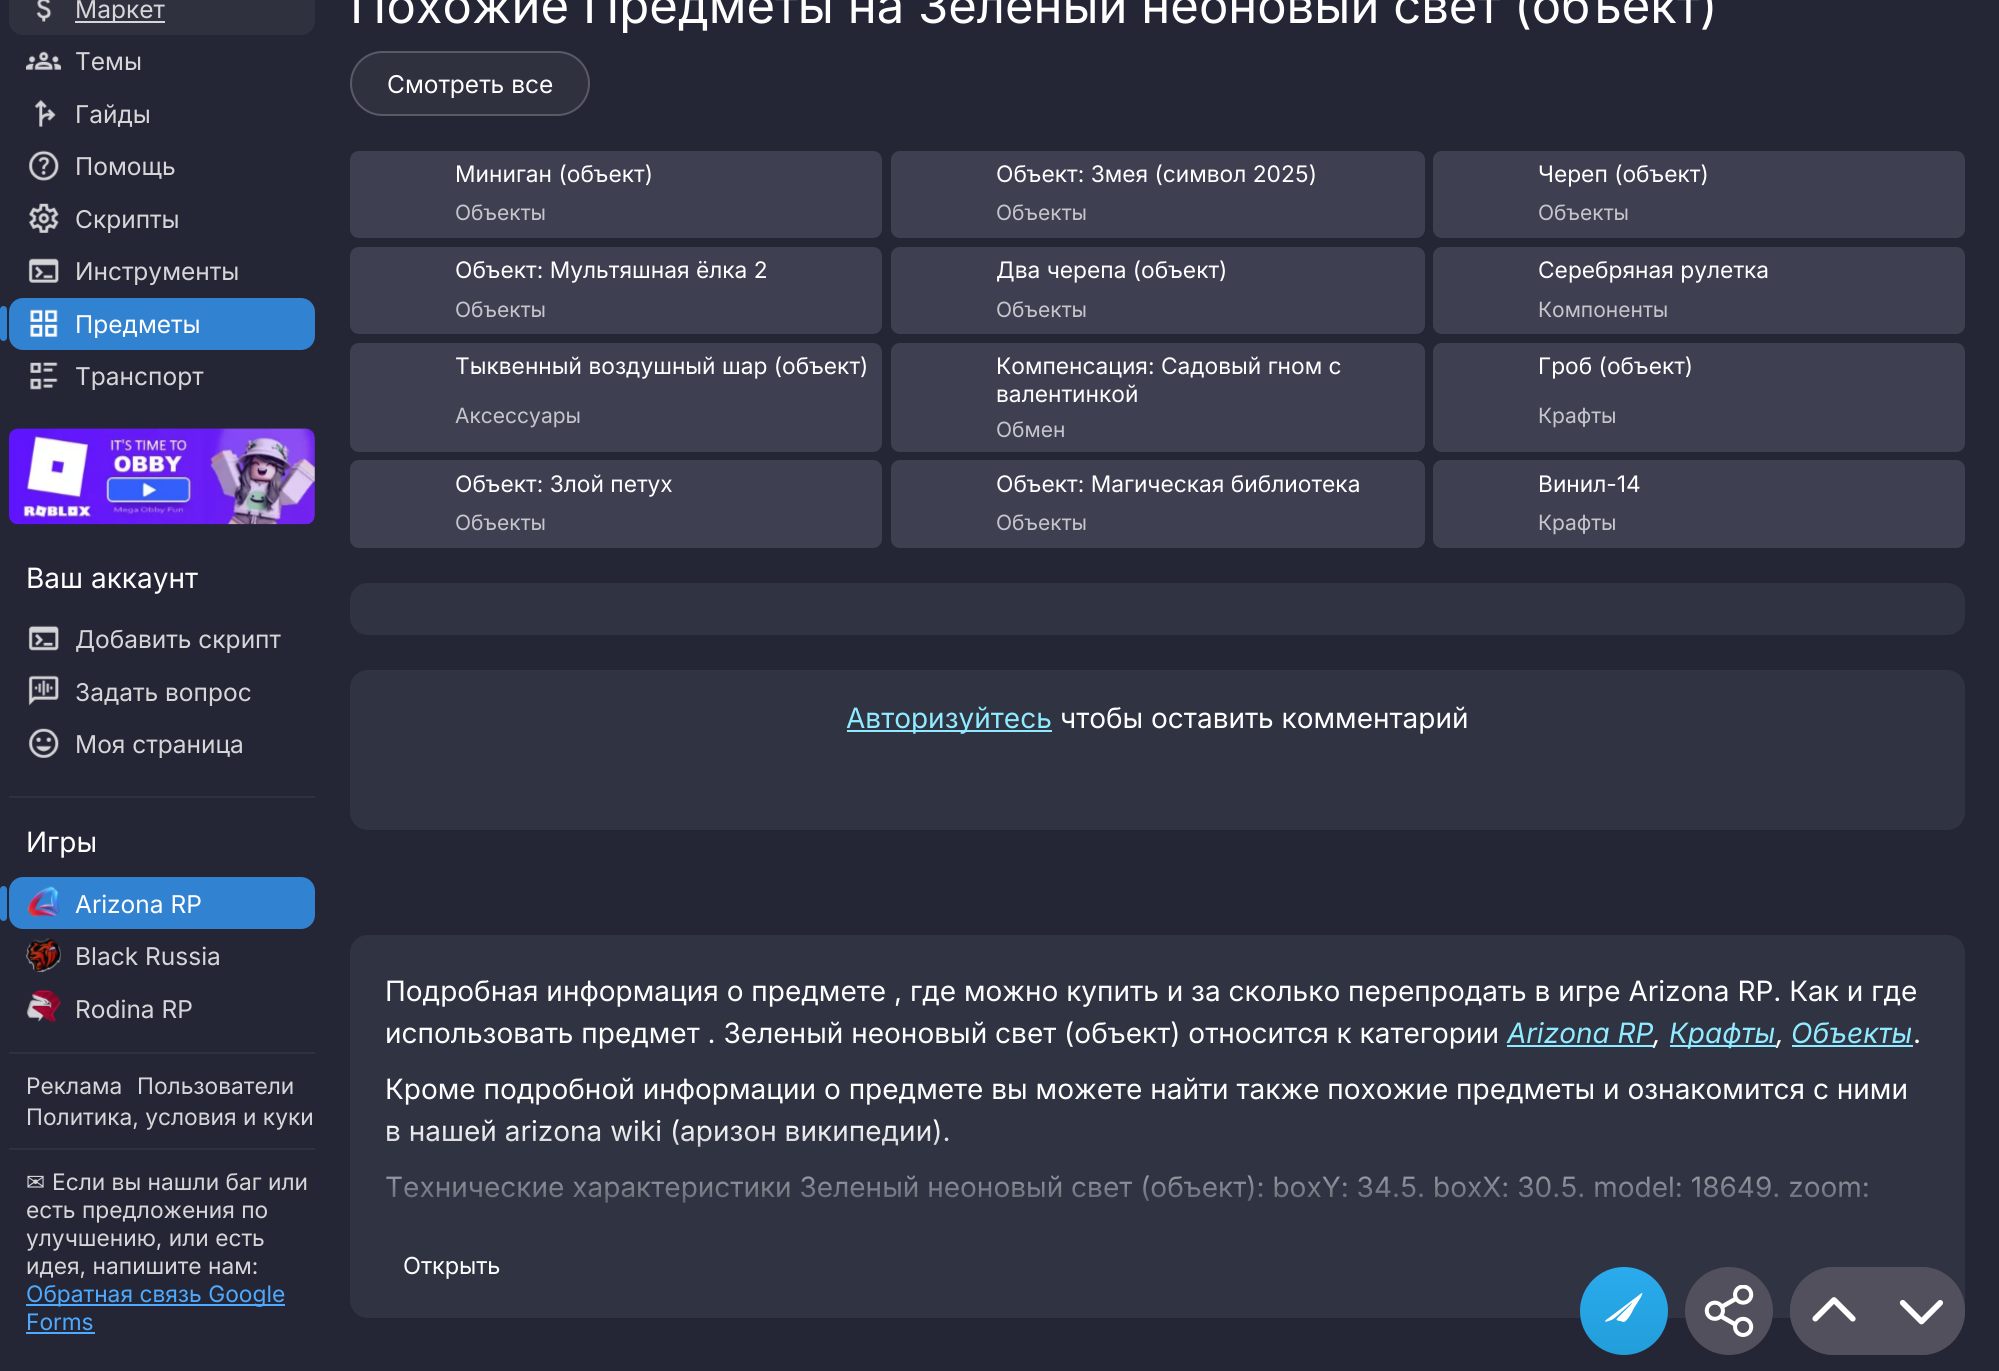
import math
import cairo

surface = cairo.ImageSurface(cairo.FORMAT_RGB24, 1999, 1371)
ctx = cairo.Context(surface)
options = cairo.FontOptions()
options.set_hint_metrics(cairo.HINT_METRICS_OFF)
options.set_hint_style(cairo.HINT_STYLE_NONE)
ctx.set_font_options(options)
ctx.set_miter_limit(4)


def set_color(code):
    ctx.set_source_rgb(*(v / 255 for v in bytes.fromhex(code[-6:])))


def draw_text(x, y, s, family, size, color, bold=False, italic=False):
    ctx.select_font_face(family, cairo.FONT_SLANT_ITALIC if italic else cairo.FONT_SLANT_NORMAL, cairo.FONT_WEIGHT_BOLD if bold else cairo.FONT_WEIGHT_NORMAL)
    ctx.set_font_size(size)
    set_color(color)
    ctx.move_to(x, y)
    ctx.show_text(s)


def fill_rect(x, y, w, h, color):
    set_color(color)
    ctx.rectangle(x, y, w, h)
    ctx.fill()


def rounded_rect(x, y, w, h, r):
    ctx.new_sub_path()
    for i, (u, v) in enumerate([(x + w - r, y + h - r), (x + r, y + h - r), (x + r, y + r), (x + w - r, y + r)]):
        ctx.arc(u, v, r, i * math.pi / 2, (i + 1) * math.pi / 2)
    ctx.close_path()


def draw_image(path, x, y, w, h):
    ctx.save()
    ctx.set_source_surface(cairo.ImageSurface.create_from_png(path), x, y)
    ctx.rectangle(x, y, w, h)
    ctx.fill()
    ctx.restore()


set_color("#252635")
ctx.paint()
set_color("#30313f")
rounded_rect(9, -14, 306, 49, 14)
ctx.fill()
draw_image("assets/img1.png", 36, 0, 16, 22)
fill_rect(75, 21, 90, 2, "#d6d6d9")
draw_text(75, 18, "Маркет", "Inter", 24.5, "#d6d6d9")
draw_image("assets/img2.png", 26, 51, 35, 19)
draw_text(75, 70, "Темы", "Inter", 24.5, "#d6d6d9")
draw_image("assets/img3.png", 34, 99, 22, 28)
draw_text(75, 123, "Гайды", "Inter", 24.5, "#d6d6d9")
draw_image("assets/img4.png", 29, 150, 30, 31)
draw_text(75, 175, "Помощь", "Inter", 24.5, "#d6d6d9")
draw_image("assets/img5.png", 29, 203, 30, 30)
draw_text(75, 228, "Скрипты", "Inter", 24.5, "#d6d6d9")
draw_image("assets/img6.png", 28, 258, 31, 25)
draw_text(75, 280, "Инструменты", "Inter", 24.5, "#d6d6d9")
set_color("#3282d2")
rounded_rect(9, 298, 306, 52, 14)
ctx.fill()
rounded_rect(0, 306, 7, 35, 3.5)
ctx.fill()
draw_image("assets/img7.png", 30, 309, 28, 28)
draw_text(75, 333, "Предметы", "Inter", 24.5, "#ffffff")
draw_image("assets/img8.png", 30, 362, 28, 28)
draw_text(75, 385, "Транспорт", "Inter", 24.5, "#d6d6d9")
draw_image("assets/img9.png", 9, 428, 306, 97)
draw_text(26, 588, "Ваш аккаунт", "Inter", 28, "#ffffff")
draw_image("assets/img10.png", 28, 625, 31, 26)
draw_text(75, 648, "Добавить скрипт", "Inter", 24.5, "#d6d6d9")
draw_image("assets/img11.png", 28, 675, 31, 31)
draw_text(75, 701, "Задать вопрос", "Inter", 24.5, "#d6d6d9")
draw_image("assets/img12.png", 28, 728, 31, 30)
draw_text(75, 753, "Моя страница", "Inter", 24.5, "#d6d6d9")
fill_rect(9, 796, 306, 2, "#30313f")
draw_text(26, 852, "Игры", "Inter", 28, "#ffffff")
set_color("#3282d2")
rounded_rect(9, 877, 306, 52, 14)
ctx.fill()
rounded_rect(0, 886, 7, 35, 3.5)
ctx.fill()
draw_image("assets/img13.png", 27, 886, 33, 31)
draw_text(75, 913, "Arizona RP", "Inter", 24.5, "#ffffff")
draw_image("assets/img14.png", 26, 938, 35, 35)
draw_text(75, 965, "Black Russia", "Inter", 24.5, "#d6d6d9")
draw_image("assets/img15.png", 26, 989, 35, 34)
draw_text(75, 1018, "Rodina RP", "Inter", 24.5, "#d6d6d9")
fill_rect(9, 1052, 306, 2, "#30313f")
draw_text(26, 1094, "Реклама", "Inter", 22.75, "#d6d6d9")
draw_text(137, 1094, "Пользователи", "Inter", 22.75, "#d6d6d9")
draw_text(26, 1125, "Политика, условия и куки", "Inter", 22.75, "#d6d6d9")
fill_rect(9, 1148, 306, 2, "#30313f")
draw_text(26, 1190, "✉", "DejaVu Sans", 22.75, "#d6d6d9")
draw_text(52, 1190, "Если вы нашли баг или", "Inter", 22.75, "#d6d6d9")
draw_text(26, 1218, "есть предложения по", "Inter", 22.75, "#d6d6d9")
draw_text(26, 1246, "улучшению, или есть", "Inter", 22.75, "#d6d6d9")
draw_text(26, 1274, "идея, напишите нам:", "Inter", 22.75, "#d6d6d9")
fill_rect(26, 1304, 259, 2, "#4eaaff")
draw_text(26, 1302, "Обратная связь Google", "Inter", 22.75, "#4eaaff")
draw_text(26, 1330, "Forms", "Inter", 22.75, "#4eaaff")
fill_rect(26, 1332, 69, 2, "#4eaaff")
draw_text(350, 23, "Похожие Предметы на Зеленый неоновый свет (объект)", "Inter", 49, "#ffffff")
set_color("#30313f")
rounded_rect(350, 51, 240, 65, 32.5)
ctx.fill()
rounded_rect(351, 52, 238, 63, 31.5)
ctx.set_source_rgba(1, 1, 1, 0.2)
ctx.stroke()
draw_text(387, 93, "Смотреть все", "Inter", 24.5, "#ffffff")
set_color("#3e4052")
rounded_rect(350, 151, 532, 87, 9)
ctx.fill()
draw_text(455, 182, "Миниган (объект)", "Inter", 22.75, "#ffffff")
draw_text(455, 220, "Объекты", "Inter", 21, "#c5c6cb")
set_color("#3e4052")
rounded_rect(891, 151, 534, 87, 9)
ctx.fill()
draw_text(996, 182, "Объект: Змея (символ 2025)", "Inter", 22.75, "#ffffff")
draw_text(996, 220, "Объекты", "Inter", 21, "#c5c6cb")
set_color("#3e4052")
rounded_rect(1433, 151, 532, 87, 9)
ctx.fill()
draw_text(1538, 182, "Череп (объект)", "Inter", 22.75, "#ffffff")
draw_text(1538, 220, "Объекты", "Inter", 21, "#c5c6cb")
set_color("#3e4052")
rounded_rect(350, 247, 532, 87, 9)
ctx.fill()
draw_text(455, 278, "Объект: Мультяшная ёлка 2", "Inter", 22.75, "#ffffff")
draw_text(455, 317, "Объекты", "Inter", 21, "#c5c6cb")
set_color("#3e4052")
rounded_rect(891, 247, 534, 87, 9)
ctx.fill()
draw_text(996, 278, "Два черепа (объект)", "Inter", 22.75, "#ffffff")
draw_text(996, 317, "Объекты", "Inter", 21, "#c5c6cb")
set_color("#3e4052")
rounded_rect(1433, 247, 532, 87, 9)
ctx.fill()
draw_text(1538, 278, "Серебряная рулетка", "Inter", 22.75, "#ffffff")
draw_text(1538, 317, "Компоненты", "Inter", 21, "#c5c6cb")
set_color("#3e4052")
rounded_rect(350, 343, 532, 109, 9)
ctx.fill()
draw_text(455, 374, "Тыквенный воздушный шар (объект)", "Inter", 22.75, "#ffffff")
draw_text(455, 423, "Аксессуары", "Inter", 21, "#c5c6cb")
set_color("#3e4052")
rounded_rect(891, 343, 534, 109, 9)
ctx.fill()
draw_text(996, 374, "Компенсация: Садовый гном с", "Inter", 22.75, "#ffffff")
draw_text(996, 402, "валентинкой", "Inter", 22.75, "#ffffff")
draw_text(996, 437, "Обмен", "Inter", 21, "#c5c6cb")
set_color("#3e4052")
rounded_rect(1433, 343, 532, 109, 9)
ctx.fill()
draw_text(1538, 374, "Гроб (объект)", "Inter", 22.75, "#ffffff")
draw_text(1538, 423, "Крафты", "Inter", 21, "#c5c6cb")
set_color("#3e4052")
rounded_rect(350, 460, 532, 88, 9)
ctx.fill()
draw_text(455, 492, "Объект: Злой петух", "Inter", 22.75, "#ffffff")
draw_text(455, 530, "Объекты", "Inter", 21, "#c5c6cb")
set_color("#3e4052")
rounded_rect(891, 460, 534, 88, 9)
ctx.fill()
draw_text(996, 492, "Объект: Магическая библиотека", "Inter", 22.75, "#ffffff")
draw_text(996, 530, "Объекты", "Inter", 21, "#c5c6cb")
set_color("#3e4052")
rounded_rect(1433, 460, 532, 88, 9)
ctx.fill()
draw_text(1538, 492, "Винил-14", "Inter", 22.75, "#ffffff")
draw_text(1538, 530, "Крафты", "Inter", 21, "#c5c6cb")
set_color("#2f3342")
rounded_rect(350, 583, 1615, 52, 18)
ctx.fill()
rounded_rect(350, 670, 1615, 160, 18)
ctx.fill()
fill_rect(847, 730, 205, 2, "#8febff")
draw_text(846, 728, "Авторизуйтесь", "Inter", 28, "#8febff")
draw_text(1060, 728, "чтобы оставить комментарий", "Inter", 28, "#ffffff")
set_color("#2f3342")
rounded_rect(350, 935, 1615, 383, 18)
ctx.fill()
draw_text(385, 1001, "Подробная информация о предмете , где можно купить и за сколько перепродать в игре Arizona RP. Как и где", "Inter", 28, "#ffffff")
draw_text(385, 1043, "использовать предмет . Зеленый неоновый свет (объект) относится к категории", "Inter", 28, "#ffffff")
draw_text(1507, 1043, "Arizona RP", "Inter", 28, "#8febff", italic=True)
fill_rect(1507, 1045, 147, 2, "#8febff")
draw_text(1653, 1043, ",", "Inter", 28, "#ffffff", italic=True)
fill_rect(1670, 1045, 106, 2, "#8febff")
draw_text(1669, 1043, "Крафты", "Inter", 28, "#8febff", italic=True)
draw_text(1776, 1043, ",", "Inter", 28, "#ffffff", italic=True)
fill_rect(1792, 1045, 121, 2, "#8febff")
draw_text(1791, 1043, "Объекты", "Inter", 28, "#8febff", italic=True)
draw_text(1913, 1043, ".", "Inter", 28, "#ffffff")
draw_text(385, 1099, "Кроме подробной информации о предмете вы можете найти также похожие предметы и ознакомится с ними", "Inter", 28, "#ffffff")
draw_text(385, 1141, "в нашей arizona wiki (аризон википедии).", "Inter", 28, "#ffffff")
draw_text(385, 1197, "Технические характеристики Зеленый неоновый свет (объект): boxY: 34.5. boxX: 30.5. model: 18649. zoom:", "Inter", 28, "#ffffff")
gradient = cairo.LinearGradient(1158, 1246, 1158, 1071)
gradient.add_color_stop_rgba(0.09, 0.184, 0.2, 0.259, 1)
gradient.add_color_stop_rgba(0.71, 0.184, 0.2, 0.259, 0)
ctx.set_source(gradient)
ctx.rectangle(386, 1124, 1482, 79)
ctx.fill()
draw_text(403, 1274, "Открыть", "Inter", 23.5, "#ffffff")
gradient = cairo.LinearGradient(1624, 1267, 1624, 1354)
gradient.add_color_stop_rgba(0, 0.165, 0.671, 0.933, 1)
gradient.add_color_stop_rgba(1, 0.133, 0.62, 0.851, 1)
ctx.set_source(gradient)
ctx.new_path()
ctx.arc(1624, 1311, 44, 0, 2 * math.pi)
ctx.fill()
set_color("#ffffff")
ctx.set_fill_rule(cairo.FILL_RULE_EVEN_ODD)
ctx.new_path()
ctx.move_to(1608, 1318.5)
ctx.line_to(1638.5, 1295.5)
ctx.curve_to(1639, 1295, 1642, 1292.5, 1642.5, 1293)
ctx.line_to(1641, 1297)
ctx.line_to(1633.5, 1309)
ctx.curve_to(1632.5, 1311.5, 1627.5, 1321, 1624, 1322)
ctx.curve_to(1623, 1322, 1621.5, 1321.5, 1620.5, 1321)
ctx.curve_to(1619.5, 1321, 1616.5, 1320.5, 1616.5, 1319.5)
ctx.curve_to(1616.5, 1318, 1632.5, 1304, 1632, 1303)
ctx.line_to(1631, 1303.5)
ctx.line_to(1622, 1311.5)
ctx.curve_to(1619, 1314, 1615.5, 1318, 1611.5, 1320)
ctx.line_to(1607, 1321.5)
ctx.curve_to(1602.5, 1322.5, 1607, 1319, 1608, 1318.5)
ctx.close_path()
ctx.fill()
set_color("#52505c")
ctx.arc(1729, 1311, 44, 0, 2 * math.pi)
ctx.fill()
draw_image("assets/img16.png", 1704, 1285, 50, 52)
rounded_rect(1790, 1267, 175, 88, 44)
ctx.fill()
ctx.arc(1834, 1311, 44, 0, 2 * math.pi)
ctx.fill()
draw_image("assets/img17.png", 1812, 1297, 44, 25)
rounded_rect(1878, 1267, 87, 88, 43.5)
ctx.fill()
draw_image("assets/img18.png", 1899, 1299, 44, 26)
surface.write_to_png("output.png")
